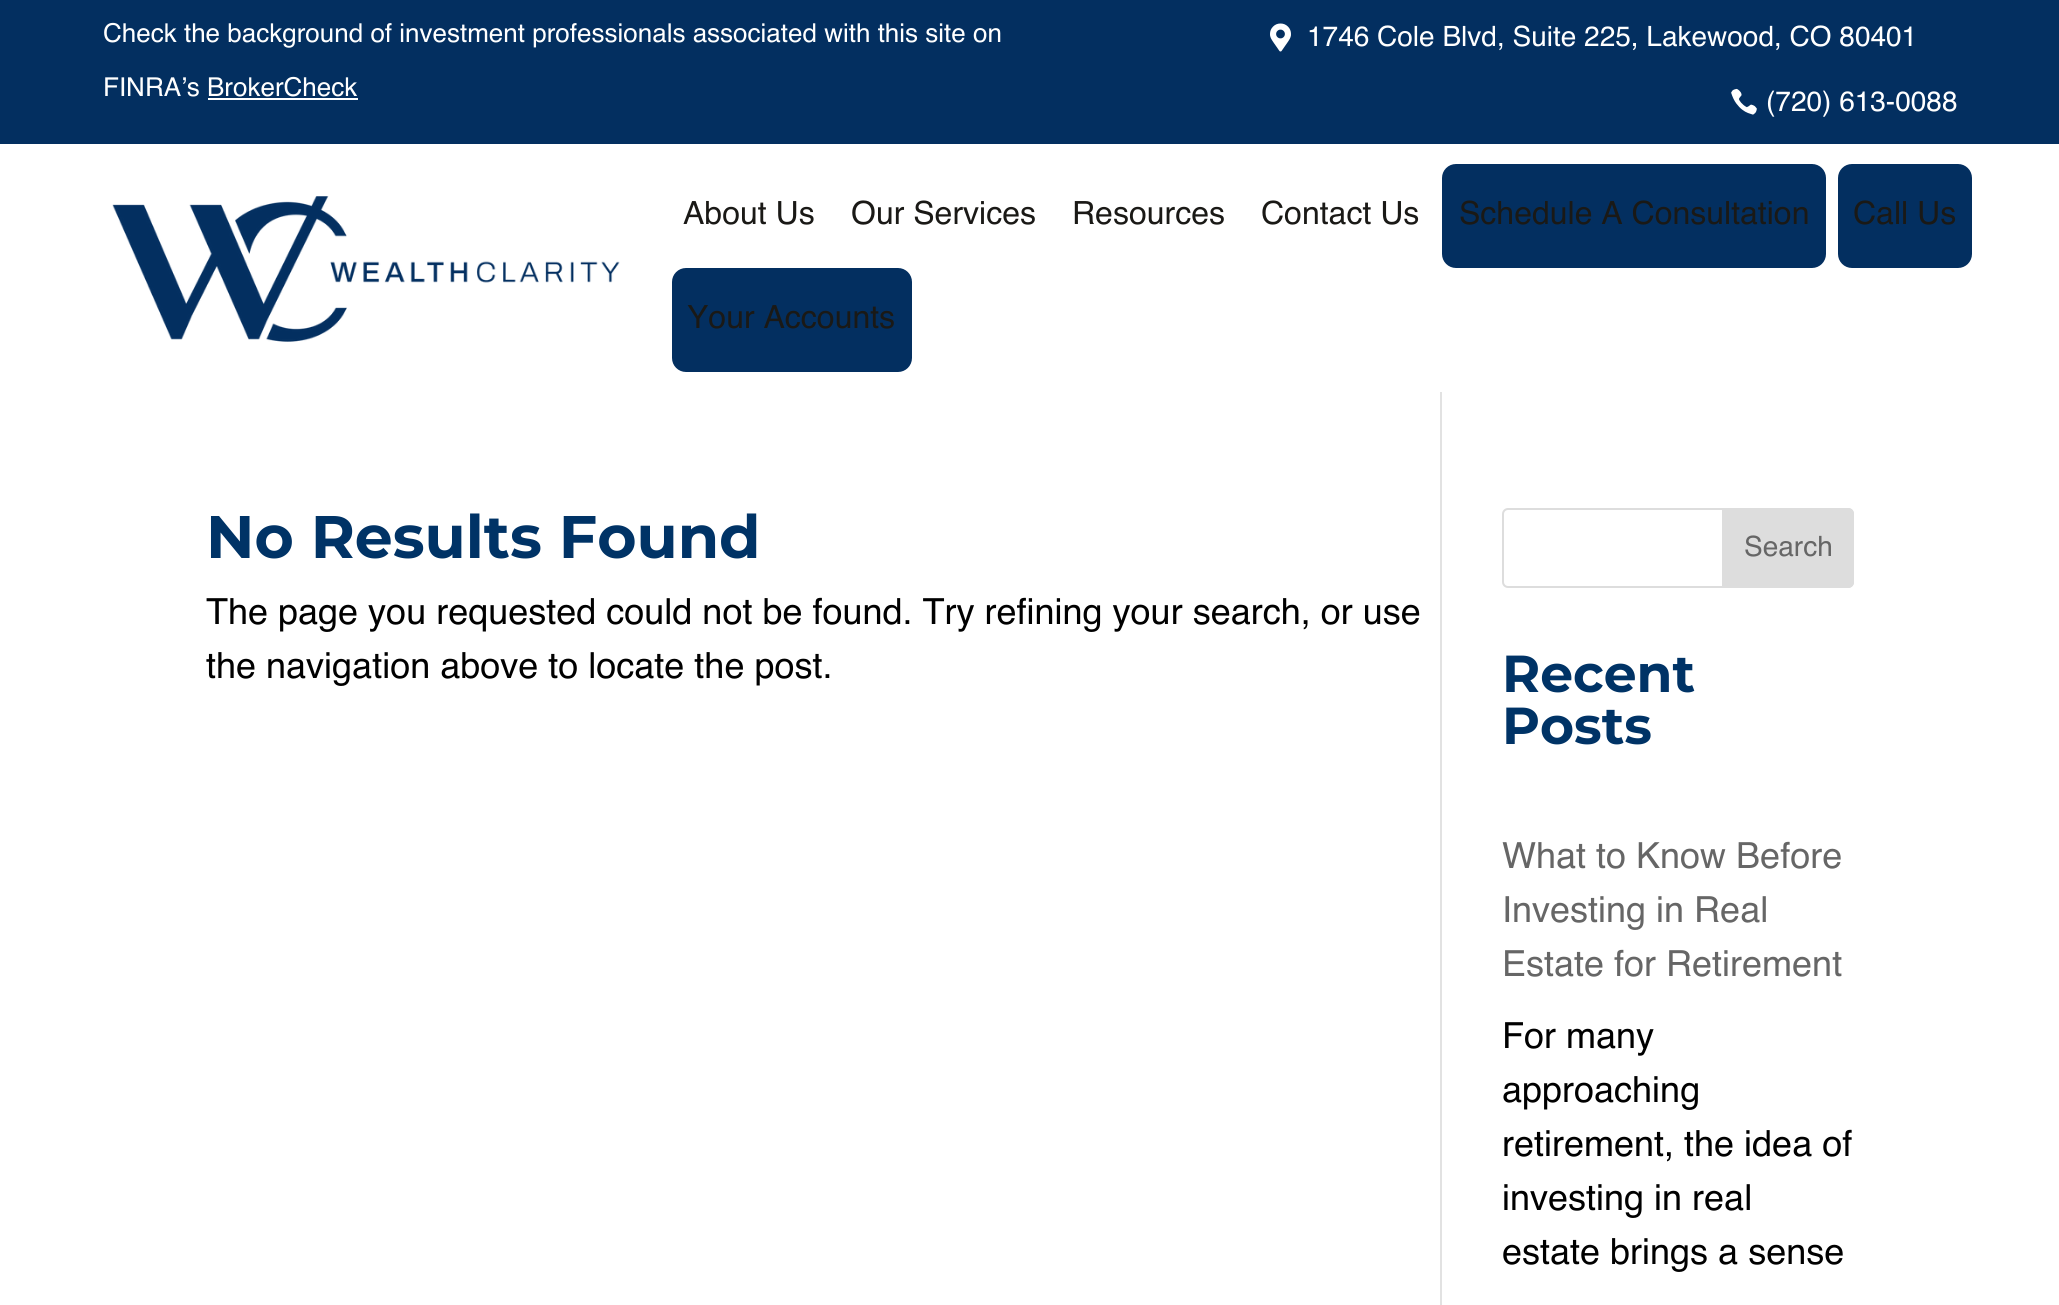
import math
import cairo

surface = cairo.ImageSurface(cairo.FORMAT_RGB24, 2059, 1305)
ctx = cairo.Context(surface)
options = cairo.FontOptions()
options.set_hint_metrics(cairo.HINT_METRICS_OFF)
options.set_hint_style(cairo.HINT_STYLE_NONE)
ctx.set_font_options(options)
ctx.set_miter_limit(4)


def set_color(code):
    ctx.set_source_rgb(*(v / 255 for v in bytes.fromhex(code[-6:])))


def draw_text(x, y, s, family, size, color, bold=False, italic=False):
    ctx.select_font_face(family, cairo.FONT_SLANT_ITALIC if italic else cairo.FONT_SLANT_NORMAL, cairo.FONT_WEIGHT_BOLD if bold else cairo.FONT_WEIGHT_NORMAL)
    ctx.set_font_size(size)
    set_color(color)
    ctx.move_to(x, y)
    ctx.show_text(s)


def fill_rect(x, y, w, h, color):
    set_color(color)
    ctx.rectangle(x, y, w, h)
    ctx.fill()


def rounded_rect(x, y, w, h, r):
    ctx.new_sub_path()
    for i, (u, v) in enumerate([(x + w - r, y + h - r), (x + r, y + h - r), (x + r, y + r), (x + w - r, y + r)]):
        ctx.arc(u, v, r, i * math.pi / 2, (i + 1) * math.pi / 2)
    ctx.close_path()


def draw_image(path, x, y, w, h):
    ctx.save()
    ctx.set_source_surface(cairo.ImageSurface.create_from_png(path), x, y)
    ctx.rectangle(x, y, w, h)
    ctx.fill()
    ctx.restore()


set_color("#ffffff")
ctx.paint()
fill_rect(0, 0, 2059, 144, "#032f60")
draw_text(103, 42, "Check the background of investment professionals associated with this site on", "Helvetica", 26, "#ffffff")
draw_text(103, 96, "FINRA’s BrokerCheck", "Helvetica", 26, "#ffffff")
fill_rect(208, 98, 150, 2, "#ffffff")
draw_image("assets/img1.png", 1270, 23, 21, 29)
draw_text(1307, 46, "1746 Cole Blvd, Suite 225, Lakewood, CO 80401", "Helvetica", 28, "#ffffff")
draw_image("assets/img2.png", 1731, 88, 26, 27)
draw_text(1766, 111, "(720) 613-0088", "Helvetica", 28, "#ffffff")
draw_image("assets/img3.png", 112, 196, 508, 146)
draw_text(683, 224, "About Us", "Helvetica", 32, "#1a1916")
draw_text(851, 224, "Our Services", "Helvetica", 32, "#1a1916")
draw_text(1072, 224, "Resources", "Helvetica", 32, "#1a1916")
draw_text(1261, 224, "Contact Us", "Helvetica", 32, "#1a1916")
set_color("#032f60")
rounded_rect(1442, 164, 384, 104, 14)
ctx.fill()
draw_text(1459, 224, "Schedule A Consultation", "Helvetica", 32, "#1a1916")
set_color("#032f60")
rounded_rect(1838, 164, 134, 104, 14)
ctx.fill()
draw_text(1853, 224, "Call Us", "Helvetica", 32, "#1a1916")
set_color("#032f60")
rounded_rect(672, 268, 240, 104, 14)
ctx.fill()
draw_text(687, 328, "Your Accounts", "Helvetica", 32, "#1a1916")
fill_rect(1440, 392, 2, 913, "#e2e2e2")
draw_text(206, 558, "No Results Found", "Montserrat", 60, "#003366", bold=True)
draw_text(206, 624, "The page you requested could not be found. Try refining your search, or use", "Helvetica", 36, "#000000")
draw_text(206, 678, "the navigation above to locate the post.", "Helvetica", 36, "#000000")
rounded_rect(1503, 509, 350, 78, 5)
set_color("#dddddd")
ctx.stroke()
ctx.new_path()
ctx.move_to(1723, 509)
ctx.line_to(1848, 509)
ctx.curve_to(1851, 509, 1853, 511, 1853, 514)
ctx.line_to(1853, 582)
ctx.curve_to(1853, 585, 1851, 587, 1848, 587)
ctx.line_to(1723, 587)
ctx.close_path()
ctx.fill_preserve()
ctx.stroke()
draw_text(1744, 556, "Search", "Helvetica", 28, "#666666")
draw_text(1502, 692, "Recent", "Montserrat", 52, "#003366", bold=True)
draw_text(1502, 744, "Posts", "Montserrat", 52, "#003366", bold=True)
draw_text(1502, 868, "What to Know Before", "Helvetica", 36, "#666666")
draw_text(1502, 922, "Investing in Real", "Helvetica", 36, "#666666")
draw_text(1502, 976, "Estate for Retirement", "Helvetica", 36, "#666666")
draw_text(1502, 1048, "For many", "Helvetica", 36, "#000000")
draw_text(1502, 1102, "approaching", "Helvetica", 36, "#000000")
draw_text(1502, 1156, "retirement, the idea of", "Helvetica", 36, "#000000")
draw_text(1502, 1210, "investing in real", "Helvetica", 36, "#000000")
draw_text(1502, 1264, "estate brings a sense", "Helvetica", 36, "#000000")
surface.write_to_png("output.png")
